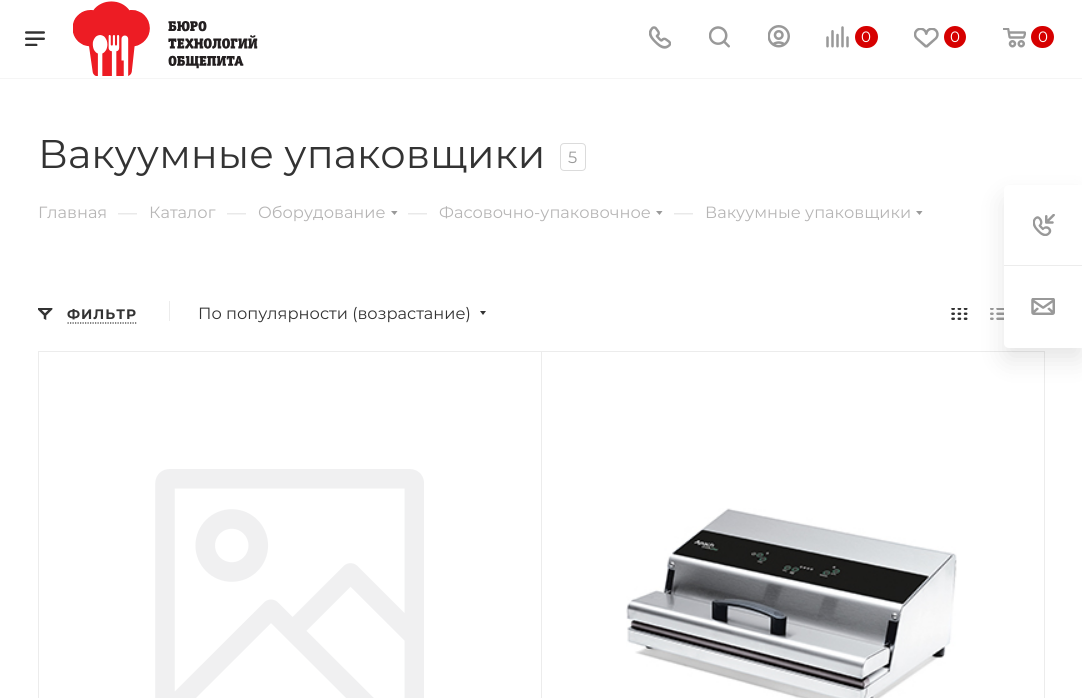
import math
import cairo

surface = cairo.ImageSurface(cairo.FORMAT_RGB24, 1082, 698)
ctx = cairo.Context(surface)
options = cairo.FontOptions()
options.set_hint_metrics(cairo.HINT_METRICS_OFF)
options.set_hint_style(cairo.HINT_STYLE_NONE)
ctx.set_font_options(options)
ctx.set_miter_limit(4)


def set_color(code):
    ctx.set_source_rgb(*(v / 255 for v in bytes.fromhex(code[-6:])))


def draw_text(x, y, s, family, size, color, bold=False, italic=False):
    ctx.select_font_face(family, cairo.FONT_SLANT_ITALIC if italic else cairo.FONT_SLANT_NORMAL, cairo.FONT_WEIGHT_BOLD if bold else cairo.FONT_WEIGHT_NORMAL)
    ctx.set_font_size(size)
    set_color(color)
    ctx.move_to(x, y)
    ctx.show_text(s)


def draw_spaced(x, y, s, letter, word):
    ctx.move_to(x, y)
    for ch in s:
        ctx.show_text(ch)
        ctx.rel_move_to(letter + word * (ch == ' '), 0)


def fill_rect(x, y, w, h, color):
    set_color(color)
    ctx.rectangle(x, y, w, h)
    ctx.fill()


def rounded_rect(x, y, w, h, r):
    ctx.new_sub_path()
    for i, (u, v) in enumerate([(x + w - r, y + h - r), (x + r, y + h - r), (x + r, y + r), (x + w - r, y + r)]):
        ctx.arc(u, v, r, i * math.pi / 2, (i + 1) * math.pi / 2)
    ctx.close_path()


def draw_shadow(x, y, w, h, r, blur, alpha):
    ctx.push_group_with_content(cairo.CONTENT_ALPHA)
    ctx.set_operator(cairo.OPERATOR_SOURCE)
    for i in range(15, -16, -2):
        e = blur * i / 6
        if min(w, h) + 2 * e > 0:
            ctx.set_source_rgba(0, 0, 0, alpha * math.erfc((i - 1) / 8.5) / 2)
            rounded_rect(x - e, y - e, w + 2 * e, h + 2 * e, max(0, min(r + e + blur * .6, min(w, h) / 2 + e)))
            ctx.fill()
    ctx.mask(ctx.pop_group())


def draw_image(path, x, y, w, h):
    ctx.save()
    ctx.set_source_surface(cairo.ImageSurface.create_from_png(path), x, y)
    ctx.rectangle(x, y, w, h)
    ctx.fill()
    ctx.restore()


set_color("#ffffff")
ctx.paint()
fill_rect(0, 78, 1082, 1, "#f5f5f5")
draw_image("assets/img1.png", 25, 31, 20, 15)
draw_image("assets/img2.png", 73, 1, 185, 75)
draw_image("assets/img3.png", 649, 26, 22, 23)
draw_image("assets/img4.png", 709, 26, 21, 22)
draw_image("assets/img5.png", 768, 25, 22, 23)
draw_image("assets/img6.png", 826, 26, 23, 22)
set_color("#d60000")
rounded_rect(855, 26, 23, 22, 11)
ctx.fill()
draw_text(861, 42, "0", "Montserrat", 15, "#ffffff")
draw_image("assets/img7.png", 914, 28, 25, 20)
set_color("#d60000")
ctx.arc(955, 37, 11, 0, 2 * math.pi)
ctx.fill()
draw_text(950, 42, "0", "Montserrat", 15, "#ffffff")
draw_image("assets/img8.png", 1003, 28, 23, 20)
set_color("#d60000")
rounded_rect(1031, 26, 23, 22, 11)
ctx.fill()
draw_text(1038, 42, "0", "Montserrat", 15, "#ffffff")
draw_text(38, 168, "Вакуумные упаковщики", "Montserrat", 40, "#333333")
rounded_rect(560.5, 143.5, 25, 27, 3.5)
set_color("#dbdbdb")
ctx.set_line_width(1)
ctx.stroke()
draw_text(568, 163, "5", "Montserrat", 16.25, "#999999")
draw_text(38, 218, "Главная", "Montserrat", 16.25, "#b6b5b5")
draw_text(118, 219, "—", "Montserrat", 19, "#dddddd")
draw_text(149, 218, "Каталог", "Montserrat", 16.25, "#b6b5b5")
draw_text(227, 219, "—", "Montserrat", 19, "#dddddd")
draw_text(258, 218, "Оборудование", "Montserrat", 16.25, "#b6b5b5")
set_color("#999999")
ctx.set_fill_rule(cairo.FILL_RULE_EVEN_ODD)
ctx.new_path()
ctx.move_to(391, 211)
ctx.line_to(397.5, 211)
ctx.line_to(394.5, 215)
ctx.close_path()
ctx.fill()
draw_text(408, 219, "—", "Montserrat", 19, "#dddddd")
draw_text(439, 218, "Фасовочно-упаковочное", "Montserrat", 16.25, "#b6b5b5")
set_color("#999999")
ctx.new_path()
ctx.move_to(656, 211)
ctx.line_to(662.5, 211)
ctx.line_to(659.5, 215)
ctx.close_path()
ctx.fill()
draw_text(674, 219, "—", "Montserrat", 19, "#dddddd")
draw_text(705, 218, "Вакуумные упаковщики", "Montserrat", 16.25, "#b6b5b5")
set_color("#999999")
ctx.new_path()
ctx.move_to(916, 211)
ctx.line_to(922.5, 211)
ctx.line_to(919.5, 215)
ctx.close_path()
ctx.fill()
draw_image("assets/img9.png", 38, 308, 15, 12)
ctx.select_font_face("Montserrat", cairo.FONT_SLANT_NORMAL, cairo.FONT_WEIGHT_BOLD)
ctx.set_font_size(13.75)
set_color("#333333")
draw_spaced(67, 319, "ФИЛЬТР", 1, 0)
ctx.new_path()
ctx.move_to(67.5, 323)
ctx.line_to(137.5, 323)
ctx.set_line_width(1.2)
ctx.set_dash([1.25, 1.25])
ctx.stroke()
fill_rect(169, 301, 1, 20, "#ececec")
draw_text(198, 319, "По популярности (возрастание)", "Montserrat", 16.25, "#333333")
ctx.new_path()
ctx.move_to(480, 311)
ctx.line_to(486, 311)
ctx.line_to(483, 315)
ctx.close_path()
ctx.fill()
draw_image("assets/img10.png", 951, 308, 17, 12)
draw_image("assets/img11.png", 990, 308, 14, 12)
ctx.rectangle(38.5, 351.5, 504, 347)
set_color("#ececec")
ctx.set_line_width(1)
ctx.set_dash([])
ctx.stroke()
draw_image("assets/img12.png", 155, 469, 269, 229)
fill_rect(542, 352, 1, 346, "#ffffff")
ctx.rectangle(541.5, 351.5, 503, 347)
set_color("#ececec")
ctx.stroke()
draw_image("assets/img13.png", 626, 508, 331, 190)
set_color("#000000")
draw_shadow(1004, 198, 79, 162, 5, 12.5, 0.1)
set_color("#ffffff")
ctx.new_path()
ctx.move_to(1009, 185)
ctx.line_to(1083, 185)
ctx.line_to(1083, 348)
ctx.line_to(1009, 348)
ctx.curve_to(1006, 348, 1004, 346, 1004, 343)
ctx.line_to(1004, 190)
ctx.curve_to(1004, 187, 1006, 185, 1009, 185)
ctx.close_path()
ctx.fill()
fill_rect(1004, 265, 78, 1, "#ececec")
draw_image("assets/img14.png", 1033, 214, 22, 22)
draw_image("assets/img15.png", 1031, 298, 24, 17)
surface.write_to_png("output.png")
